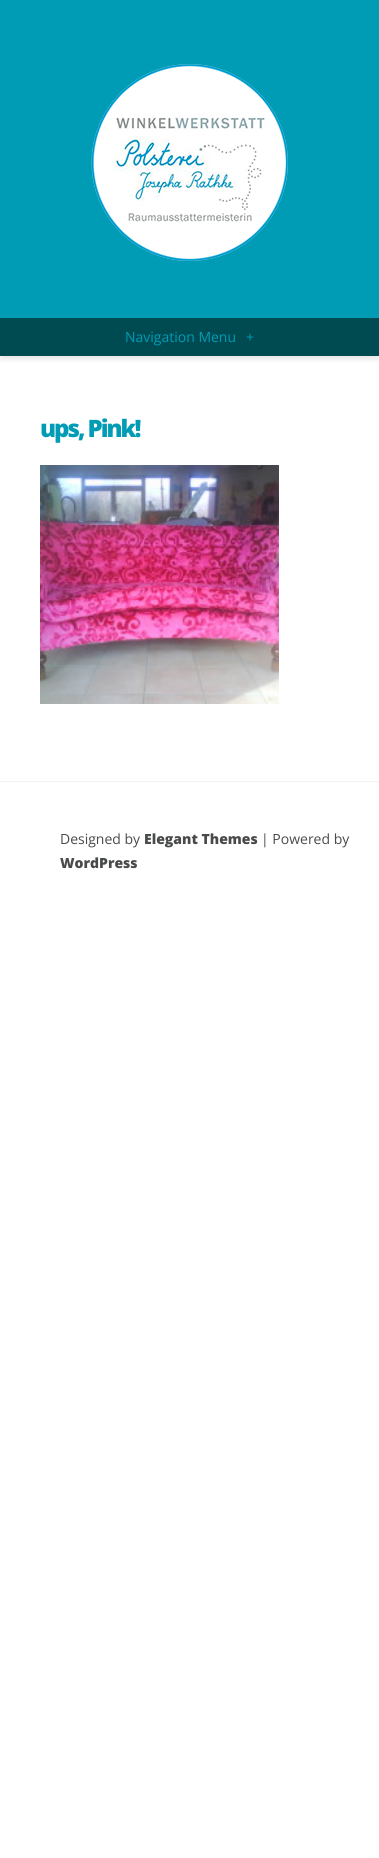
import math
import cairo

surface = cairo.ImageSurface(cairo.FORMAT_RGB24, 379, 1858)
ctx = cairo.Context(surface)
options = cairo.FontOptions()
options.set_hint_metrics(cairo.HINT_METRICS_OFF)
options.set_hint_style(cairo.HINT_STYLE_NONE)
ctx.set_font_options(options)
ctx.set_miter_limit(4)


def set_color(code):
    ctx.set_source_rgb(*(v / 255 for v in bytes.fromhex(code[-6:])))


def draw_text(x, y, s, family, size, color, bold=False, italic=False):
    ctx.select_font_face(family, cairo.FONT_SLANT_ITALIC if italic else cairo.FONT_SLANT_NORMAL, cairo.FONT_WEIGHT_BOLD if bold else cairo.FONT_WEIGHT_NORMAL)
    ctx.set_font_size(size)
    set_color(color)
    ctx.move_to(x, y)
    ctx.show_text(s)


def draw_spaced(x, y, s, letter, word):
    ctx.move_to(x, y)
    for ch in s:
        ctx.show_text(ch)
        ctx.rel_move_to(letter + word * (ch == ' '), 0)


def fill_rect(x, y, w, h, color):
    set_color(color)
    ctx.rectangle(x, y, w, h)
    ctx.fill()


def rounded_rect(x, y, w, h, r):
    ctx.new_sub_path()
    for i, (u, v) in enumerate([(x + w - r, y + h - r), (x + r, y + h - r), (x + r, y + r), (x + w - r, y + r)]):
        ctx.arc(u, v, r, i * math.pi / 2, (i + 1) * math.pi / 2)
    ctx.close_path()


def draw_shadow(x, y, w, h, r, blur, alpha):
    ctx.push_group_with_content(cairo.CONTENT_ALPHA)
    ctx.set_operator(cairo.OPERATOR_SOURCE)
    for i in range(15, -16, -2):
        e = blur * i / 6
        if min(w, h) + 2 * e > 0:
            ctx.set_source_rgba(0, 0, 0, alpha * math.erfc((i - 1) / 8.5) / 2)
            rounded_rect(x - e, y - e, w + 2 * e, h + 2 * e, max(0, min(r + e + blur * .6, min(w, h) / 2 + e)))
            ctx.fill()
    ctx.mask(ctx.pop_group())


def draw_image(path, x, y, w, h):
    ctx.save()
    ctx.set_source_surface(cairo.ImageSurface.create_from_png(path), x, y)
    ctx.rectangle(x, y, w, h)
    ctx.fill()
    ctx.restore()


set_color("#ffffff")
ctx.paint()
set_color("#000000")
draw_shadow(0, 4, 379, 356, 0, 2, 0.08)
fill_rect(0, 0, 379, 318, "#009cb5")
draw_image("assets/img1.png", 91, 64, 197, 197)
fill_rect(0, 318, 379, 38, "#004a51")
draw_text(125, 342, "Navigation Menu", "Open Sans", 14, "#009cb5")
draw_text(246, 342, "+", "Open Sans", 14, "#009cb5")
ctx.select_font_face("Open Sans ExtraBold")
ctx.set_font_size(24)
draw_spaced(40, 437, "ups, Pink!", -2, 0)
draw_image("assets/img2.png", 40, 465, 239, 239)
fill_rect(0, 781, 379, 1, "#f3f3f3")
draw_text(60, 844, "Designed by", "Open Sans", 14, "#494b4b")
draw_text(144, 844, "Elegant Themes", "Open Sans ExtraBold", 14, "#494b4b")
draw_text(261, 844, "| Powered by", "Open Sans", 14, "#494b4b")
draw_text(60, 868, "WordPress", "Open Sans ExtraBold", 14, "#494b4b")
surface.write_to_png("output.png")
